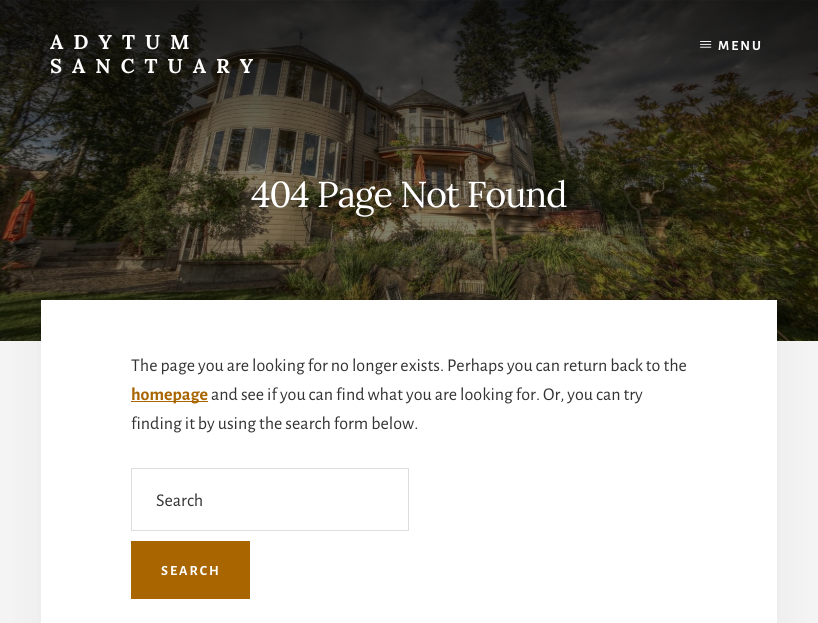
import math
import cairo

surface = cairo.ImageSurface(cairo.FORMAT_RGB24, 818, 623)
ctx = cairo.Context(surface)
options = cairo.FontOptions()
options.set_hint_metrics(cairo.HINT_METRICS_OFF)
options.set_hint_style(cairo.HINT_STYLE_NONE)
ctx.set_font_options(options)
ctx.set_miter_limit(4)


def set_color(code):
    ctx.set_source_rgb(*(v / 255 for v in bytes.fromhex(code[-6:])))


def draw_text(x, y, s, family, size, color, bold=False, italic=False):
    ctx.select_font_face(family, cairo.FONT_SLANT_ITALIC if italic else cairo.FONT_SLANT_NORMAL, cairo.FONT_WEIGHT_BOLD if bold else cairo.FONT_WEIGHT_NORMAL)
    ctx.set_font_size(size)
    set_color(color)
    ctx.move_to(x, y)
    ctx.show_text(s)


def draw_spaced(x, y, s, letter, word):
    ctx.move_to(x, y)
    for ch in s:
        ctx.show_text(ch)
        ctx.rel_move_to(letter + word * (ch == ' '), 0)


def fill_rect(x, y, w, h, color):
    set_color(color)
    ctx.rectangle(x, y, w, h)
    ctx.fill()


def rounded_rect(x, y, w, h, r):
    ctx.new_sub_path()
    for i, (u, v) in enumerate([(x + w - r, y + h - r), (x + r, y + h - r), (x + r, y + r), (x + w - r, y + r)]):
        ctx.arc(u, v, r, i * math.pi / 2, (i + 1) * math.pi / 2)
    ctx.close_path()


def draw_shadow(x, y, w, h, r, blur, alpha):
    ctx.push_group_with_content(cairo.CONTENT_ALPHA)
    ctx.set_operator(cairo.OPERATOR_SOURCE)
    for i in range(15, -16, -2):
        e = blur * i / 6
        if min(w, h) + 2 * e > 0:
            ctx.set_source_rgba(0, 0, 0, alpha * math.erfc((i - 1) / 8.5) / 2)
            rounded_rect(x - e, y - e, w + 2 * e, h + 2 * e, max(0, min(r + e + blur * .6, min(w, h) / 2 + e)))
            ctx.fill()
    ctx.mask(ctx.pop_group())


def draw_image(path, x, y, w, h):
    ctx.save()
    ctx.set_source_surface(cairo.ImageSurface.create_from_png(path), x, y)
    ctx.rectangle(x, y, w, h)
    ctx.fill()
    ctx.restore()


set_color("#f4f4f4")
ctx.paint()
draw_image("assets/img1.png", 0, 0, 818, 341)
ctx.select_font_face("Lora", cairo.FONT_SLANT_NORMAL, cairo.FONT_WEIGHT_BOLD)
ctx.set_font_size(20)
set_color("#ffffff")
draw_spaced(50, 49, "ADYTUM", 10, 0)
draw_spaced(50, 73, "SANCTUARY", 10, 0)
draw_image("assets/img2.png", 700, 41, 12, 7)
ctx.select_font_face("Alegreya Sans", cairo.FONT_SLANT_NORMAL, cairo.FONT_WEIGHT_BOLD)
ctx.set_font_size(14)
draw_spaced(718, 50, "MENU", 2, 0)
ctx.select_font_face("Lora")
ctx.set_font_size(36)
draw_spaced(251, 207, "404 Page Not Found", -1.25, 0)
set_color("#000000")
draw_shadow(41, 325, 736, 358, 0, 20, 0.05)
fill_rect(41, 300, 736, 323, "#ffffff")
draw_text(131, 371, "The page you are looking for no longer exists. Perhaps you can return back to the", "Alegreya Sans", 18, "#333333")
fill_rect(131, 401, 77, 1, "#a86500")
draw_text(131, 400, "homepage", "Alegreya Sans", 18, "#a86500", bold=True)
draw_text(211, 400, "and see if you can find what you are looking for. Or, you can try", "Alegreya Sans", 18, "#333333")
draw_text(131, 429, "finding it by using the search form below.", "Alegreya Sans", 18, "#333333")
ctx.rectangle(131.5, 468.5, 277, 62)
set_color("#dddddd")
ctx.set_line_width(1)
ctx.stroke()
draw_text(156, 506, "Search", "Alegreya Sans", 18, "#333333")
fill_rect(131, 541, 119, 58, "#a86500")
ctx.select_font_face("Alegreya Sans", cairo.FONT_SLANT_NORMAL, cairo.FONT_WEIGHT_BOLD)
ctx.set_font_size(14)
set_color("#ffffff")
draw_spaced(161, 575, "SEARCH", 2, 0)
surface.write_to_png("output.png")
